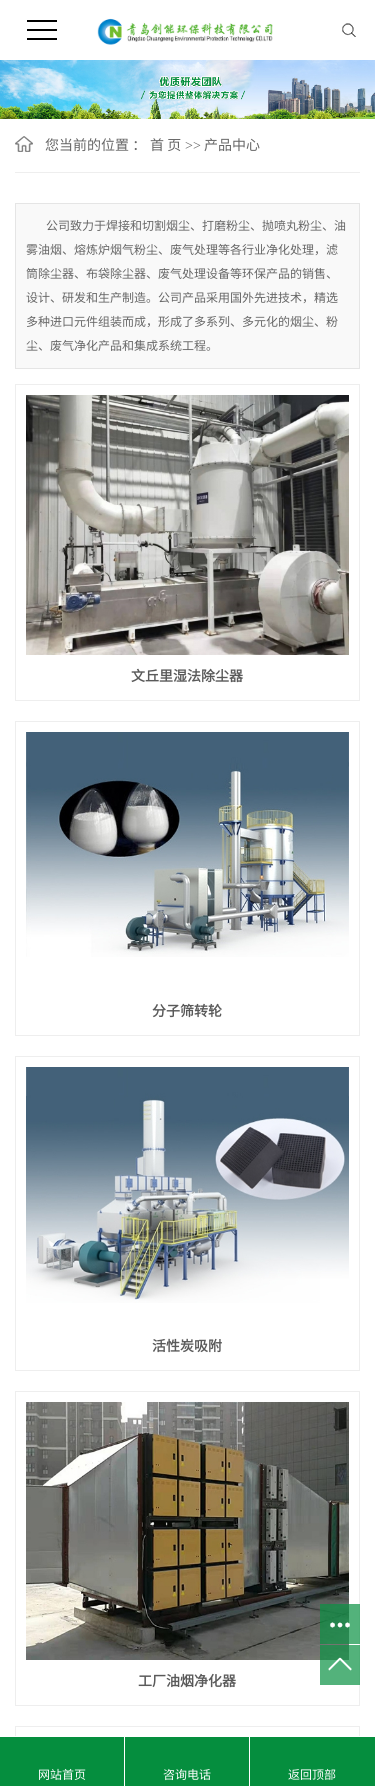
import math
import cairo

surface = cairo.ImageSurface(cairo.FORMAT_RGB24, 375, 1786)
ctx = cairo.Context(surface)
options = cairo.FontOptions()
options.set_hint_metrics(cairo.HINT_METRICS_OFF)
options.set_hint_style(cairo.HINT_STYLE_NONE)
ctx.set_font_options(options)
ctx.set_miter_limit(4)


def set_color(code):
    ctx.set_source_rgb(*(v / 255 for v in bytes.fromhex(code[-6:])))


def draw_text(x, y, s, family, size, color, bold=False, italic=False):
    ctx.select_font_face(family, cairo.FONT_SLANT_ITALIC if italic else cairo.FONT_SLANT_NORMAL, cairo.FONT_WEIGHT_BOLD if bold else cairo.FONT_WEIGHT_NORMAL)
    ctx.set_font_size(size)
    set_color(color)
    ctx.move_to(x, y)
    ctx.show_text(s)


def fill_rect(x, y, w, h, color):
    set_color(color)
    ctx.rectangle(x, y, w, h)
    ctx.fill()


def draw_image(path, x, y, w, h):
    ctx.save()
    ctx.set_source_surface(cairo.ImageSurface.create_from_png(path), x, y)
    ctx.rectangle(x, y, w, h)
    ctx.fill()
    ctx.restore()


set_color("#ffffff")
ctx.paint()
fill_rect(27, 20, 30, 2, "#000000")
fill_rect(27, 29, 30, 2, "#000000")
fill_rect(27, 38, 30, 2, "#000000")
draw_image("assets/img1.png", 97, 18, 176, 27)
draw_image("assets/img2.png", 342, 23, 14, 14)
draw_image("assets/img3.png", 0, 60, 375, 59)
fill_rect(15, 172, 345, 1, "#eeeeee")
draw_image("assets/img4.png", 15, 136, 18, 16)
draw_text(45, 150, "您当前的位置 ：", "Noto Sans CJK SC", 14, "#666666")
draw_text(150, 150, "首 页", "Noto Sans CJK SC", 14, "#666666")
draw_text(185, 150, ">>", "Liberation Serif", 14, "#666666")
draw_text(204, 150, "产品中心", "Noto Sans CJK SC", 14, "#666666")
set_color("#f9f9f9")
ctx.rectangle(15.5, 203.5, 344, 165)
ctx.fill_preserve()
set_color("#e5e5e5")
ctx.set_line_width(1)
ctx.stroke()
draw_text(46, 230, "公司致力于焊接和切割烟尘、打磨粉尘、抛喷丸粉尘、油", "Noto Sans CJK SC", 12, "#666666")
draw_text(26, 254, "雾油烟、熔炼炉烟气粉尘、废气处理等各行业净化处理，滤", "Noto Sans CJK SC", 12, "#666666")
draw_text(26, 278, "筒除尘器、布袋除尘器、废气处理设备等环保产品的销售、", "Noto Sans CJK SC", 12, "#666666")
draw_text(26, 302, "设计、研发和生产制造。公司产品采用国外先进技术，精选", "Noto Sans CJK SC", 12, "#666666")
draw_text(26, 326, "多种进口元件组装而成，形成了多系列、多元化的烟尘、粉", "Noto Sans CJK SC", 12, "#666666")
draw_text(26, 350, "尘、废气净化产品和集成系统工程。", "Noto Sans CJK SC", 12, "#666666")
ctx.rectangle(15.5, 384.5, 344, 316)
set_color("#eeeeee")
ctx.stroke()
draw_image("assets/img5.png", 26, 395, 323, 260)
draw_text(131, 681, "文丘里湿法除尘器", "Noto Sans CJK SC", 14, "#5a5a5a", bold=True)
ctx.rectangle(15.5, 721.5, 344, 314)
set_color("#eeeeee")
ctx.stroke()
draw_image("assets/img6.png", 26, 732, 323, 225)
draw_text(152, 1016, "分子筛转轮", "Noto Sans CJK SC", 14, "#5a5a5a", bold=True)
ctx.rectangle(15.5, 1056.5, 344, 314)
set_color("#eeeeee")
ctx.stroke()
draw_image("assets/img7.png", 26, 1067, 323, 236)
draw_text(152, 1351, "活性炭吸附", "Noto Sans CJK SC", 14, "#5a5a5a", bold=True)
ctx.rectangle(15.5, 1391.5, 344, 314)
set_color("#eeeeee")
ctx.stroke()
draw_image("assets/img8.png", 26, 1402, 323, 258)
draw_text(138, 1686, "工厂油烟净化器", "Noto Sans CJK SC", 14, "#5a5a5a", bold=True)
ctx.rectangle(15.5, 1726.5, 344, 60)
set_color("#eeeeee")
ctx.stroke()
ctx.set_source_rgba(0.043, 0.573, 0.263, 0.7)
ctx.rectangle(320, 1604, 40, 40)
ctx.fill()
draw_image("assets/img9.png", 330, 1622, 20, 6)
ctx.rectangle(320, 1645, 40, 40)
ctx.fill()
draw_image("assets/img10.png", 328, 1657, 24, 14)
fill_rect(0, 1737, 375, 49, "#058e3e")
fill_rect(15, 1736, 345, 1, "#ffffff")
fill_rect(124, 1737, 1, 49, "#ffffff")
draw_text(38, 1779, "网站首页", "Noto Sans CJK SC", 12, "#ffffff")
fill_rect(249, 1737, 1, 49, "#ffffff")
draw_text(163, 1779, "咨询电话", "Noto Sans CJK SC", 12, "#ffffff")
draw_text(288, 1779, "返回顶部", "Noto Sans CJK SC", 12, "#ffffff")
surface.write_to_png("output.png")
